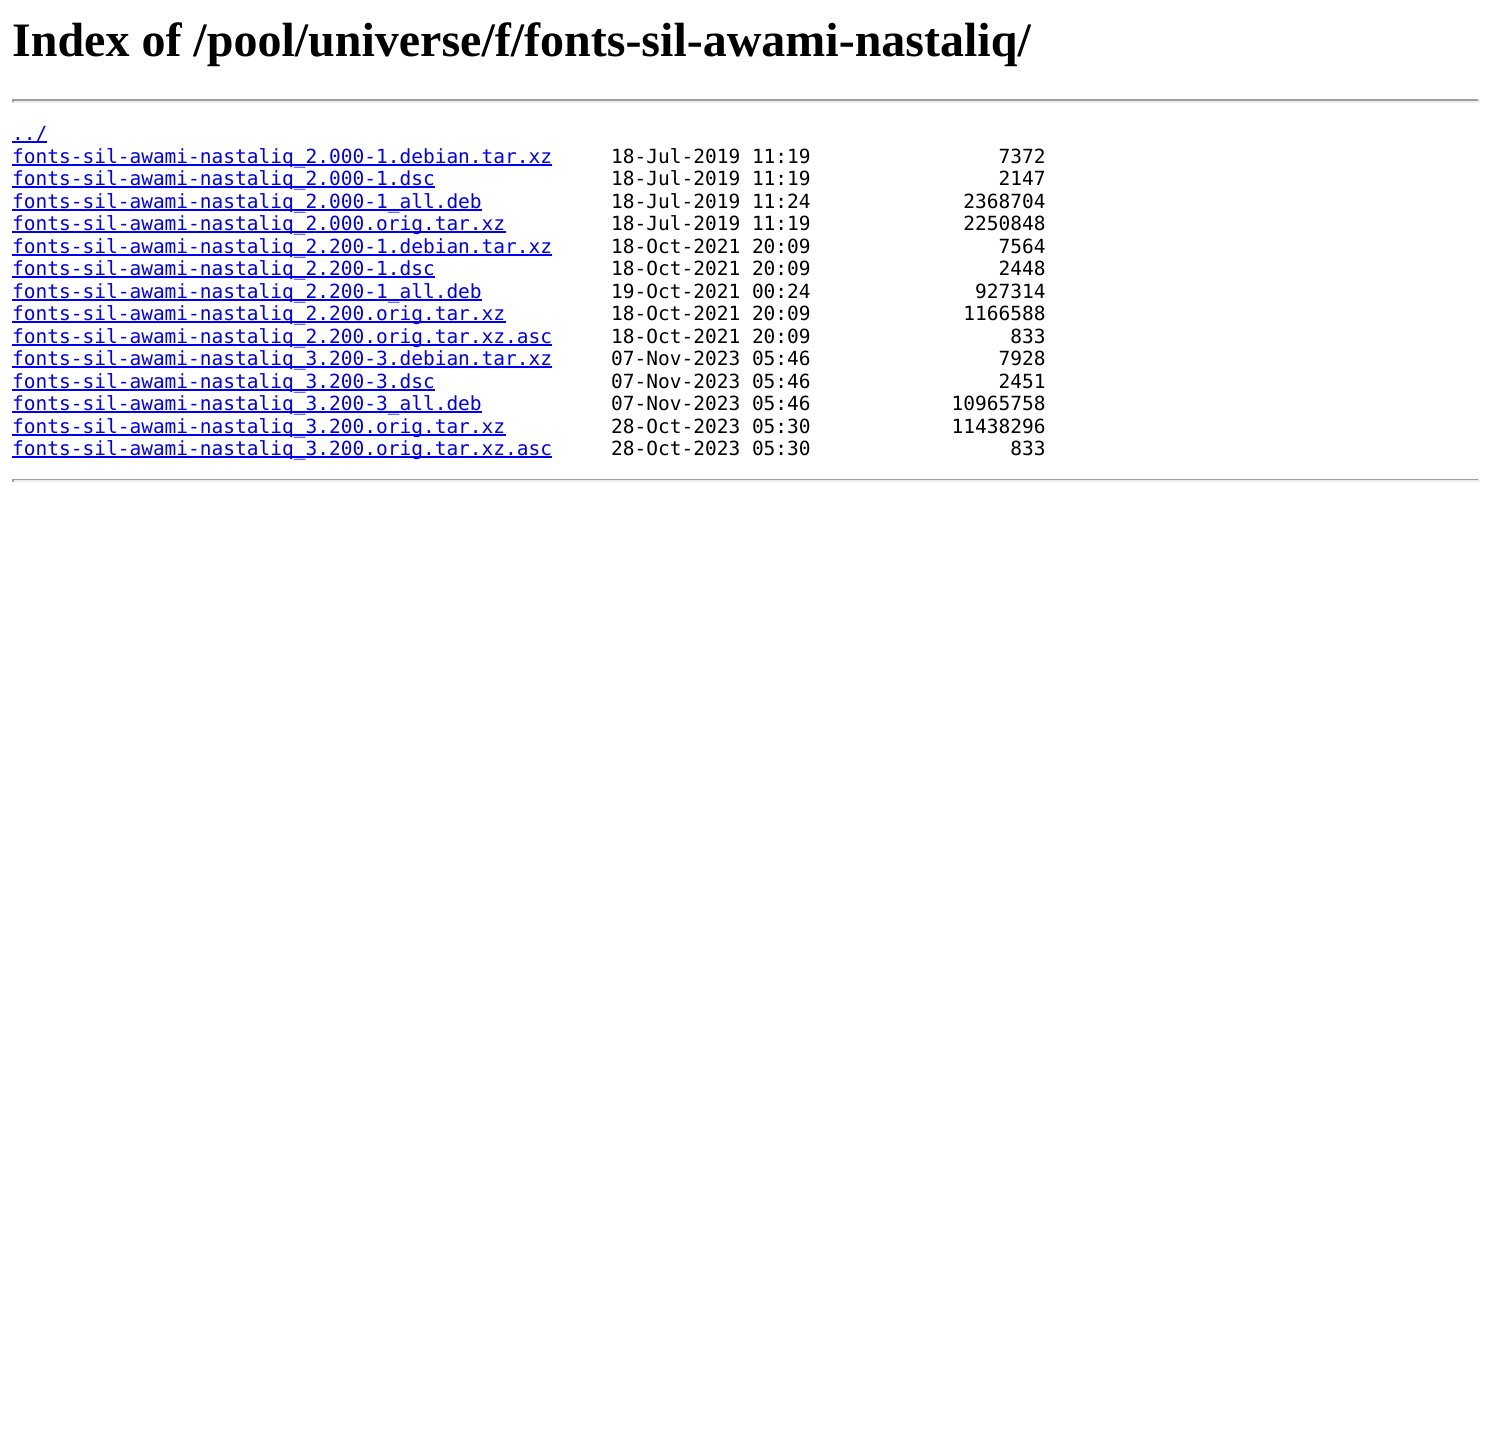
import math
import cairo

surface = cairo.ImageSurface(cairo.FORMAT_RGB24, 1491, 1446)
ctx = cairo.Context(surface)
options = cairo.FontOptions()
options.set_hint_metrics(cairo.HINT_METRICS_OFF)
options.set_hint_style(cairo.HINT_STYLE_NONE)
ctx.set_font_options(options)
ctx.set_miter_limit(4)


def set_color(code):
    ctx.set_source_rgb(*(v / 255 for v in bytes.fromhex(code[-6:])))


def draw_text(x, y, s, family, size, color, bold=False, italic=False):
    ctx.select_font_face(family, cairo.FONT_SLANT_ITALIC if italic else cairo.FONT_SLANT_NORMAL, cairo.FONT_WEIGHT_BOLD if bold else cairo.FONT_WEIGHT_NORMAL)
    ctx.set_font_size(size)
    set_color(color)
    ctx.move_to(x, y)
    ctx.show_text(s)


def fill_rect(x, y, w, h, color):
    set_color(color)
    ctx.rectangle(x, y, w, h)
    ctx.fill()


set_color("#ffffff")
ctx.paint()
draw_text(12, 56, "Index of /pool/universe/f/fonts-sil-awami-nastaliq/", "Liberation Serif", 48, "#000000", bold=True)
fill_rect(12, 99, 1467, 2, "#9f9f9f")
fill_rect(1478, 99, 2, 3, "#eeeeee")
fill_rect(12, 101, 1467, 2, "#eeeeee")
fill_rect(12, 99, 2, 3, "#9f9f9f")
fill_rect(12, 141, 35, 2, "#0000ee")
draw_text(12, 140, "../", "DejaVu Sans Mono", 19.5, "#0000ee")
fill_rect(12, 164, 540, 2, "#0000ee")
draw_text(12, 163, "fonts-sil-awami-nastaliq_2.000-1.debian.tar.xz", "DejaVu Sans Mono", 19.5, "#0000ee")
draw_text(611, 163, "18-Jul-2019 11:19                7372", "DejaVu Sans Mono", 19.5, "#000000")
fill_rect(12, 186, 423, 2, "#0000ee")
draw_text(12, 185, "fonts-sil-awami-nastaliq_2.000-1.dsc", "DejaVu Sans Mono", 19.5, "#0000ee")
draw_text(611, 185, "18-Jul-2019 11:19                2147", "DejaVu Sans Mono", 19.5, "#000000")
fill_rect(12, 209, 470, 2, "#0000ee")
draw_text(12, 208, "fonts-sil-awami-nastaliq_2.000-1_all.deb", "DejaVu Sans Mono", 19.5, "#0000ee")
draw_text(611, 208, "18-Jul-2019 11:24             2368704", "DejaVu Sans Mono", 19.5, "#000000")
fill_rect(12, 231, 494, 2, "#0000ee")
draw_text(12, 230, "fonts-sil-awami-nastaliq_2.000.orig.tar.xz", "DejaVu Sans Mono", 19.5, "#0000ee")
draw_text(611, 230, "18-Jul-2019 11:19             2250848", "DejaVu Sans Mono", 19.5, "#000000")
fill_rect(12, 254, 540, 2, "#0000ee")
draw_text(12, 253, "fonts-sil-awami-nastaliq_2.200-1.debian.tar.xz", "DejaVu Sans Mono", 19.5, "#0000ee")
draw_text(611, 253, "18-Oct-2021 20:09                7564", "DejaVu Sans Mono", 19.5, "#000000")
fill_rect(12, 276, 423, 2, "#0000ee")
draw_text(12, 275, "fonts-sil-awami-nastaliq_2.200-1.dsc", "DejaVu Sans Mono", 19.5, "#0000ee")
draw_text(611, 275, "18-Oct-2021 20:09                2448", "DejaVu Sans Mono", 19.5, "#000000")
fill_rect(12, 299, 470, 2, "#0000ee")
draw_text(12, 298, "fonts-sil-awami-nastaliq_2.200-1_all.deb", "DejaVu Sans Mono", 19.5, "#0000ee")
draw_text(611, 298, "19-Oct-2021 00:24              927314", "DejaVu Sans Mono", 19.5, "#000000")
fill_rect(12, 321, 494, 2, "#0000ee")
draw_text(12, 320, "fonts-sil-awami-nastaliq_2.200.orig.tar.xz", "DejaVu Sans Mono", 19.5, "#0000ee")
draw_text(611, 320, "18-Oct-2021 20:09             1166588", "DejaVu Sans Mono", 19.5, "#000000")
fill_rect(12, 344, 540, 2, "#0000ee")
draw_text(12, 343, "fonts-sil-awami-nastaliq_2.200.orig.tar.xz.asc", "DejaVu Sans Mono", 19.5, "#0000ee")
draw_text(611, 343, "18-Oct-2021 20:09                 833", "DejaVu Sans Mono", 19.5, "#000000")
fill_rect(12, 366, 540, 2, "#0000ee")
draw_text(12, 365, "fonts-sil-awami-nastaliq_3.200-3.debian.tar.xz", "DejaVu Sans Mono", 19.5, "#0000ee")
draw_text(611, 365, "07-Nov-2023 05:46                7928", "DejaVu Sans Mono", 19.5, "#000000")
fill_rect(12, 389, 423, 2, "#0000ee")
draw_text(12, 388, "fonts-sil-awami-nastaliq_3.200-3.dsc", "DejaVu Sans Mono", 19.5, "#0000ee")
draw_text(611, 388, "07-Nov-2023 05:46                2451", "DejaVu Sans Mono", 19.5, "#000000")
fill_rect(12, 411, 470, 2, "#0000ee")
draw_text(12, 410, "fonts-sil-awami-nastaliq_3.200-3_all.deb", "DejaVu Sans Mono", 19.5, "#0000ee")
draw_text(611, 410, "07-Nov-2023 05:46            10965758", "DejaVu Sans Mono", 19.5, "#000000")
fill_rect(12, 434, 494, 2, "#0000ee")
draw_text(12, 433, "fonts-sil-awami-nastaliq_3.200.orig.tar.xz", "DejaVu Sans Mono", 19.5, "#0000ee")
draw_text(611, 433, "28-Oct-2023 05:30            11438296", "DejaVu Sans Mono", 19.5, "#000000")
fill_rect(12, 456, 540, 2, "#0000ee")
draw_text(12, 455, "fonts-sil-awami-nastaliq_3.200.orig.tar.xz.asc", "DejaVu Sans Mono", 19.5, "#0000ee")
draw_text(611, 455, "28-Oct-2023 05:30                 833", "DejaVu Sans Mono", 19.5, "#000000")
fill_rect(12, 479, 1467, 1, "#9f9f9f")
fill_rect(1478, 479, 2, 3, "#eeeeee")
fill_rect(12, 480, 1467, 2, "#eeeeee")
fill_rect(12, 479, 2, 3, "#9f9f9f")
surface.write_to_png("output.png")
